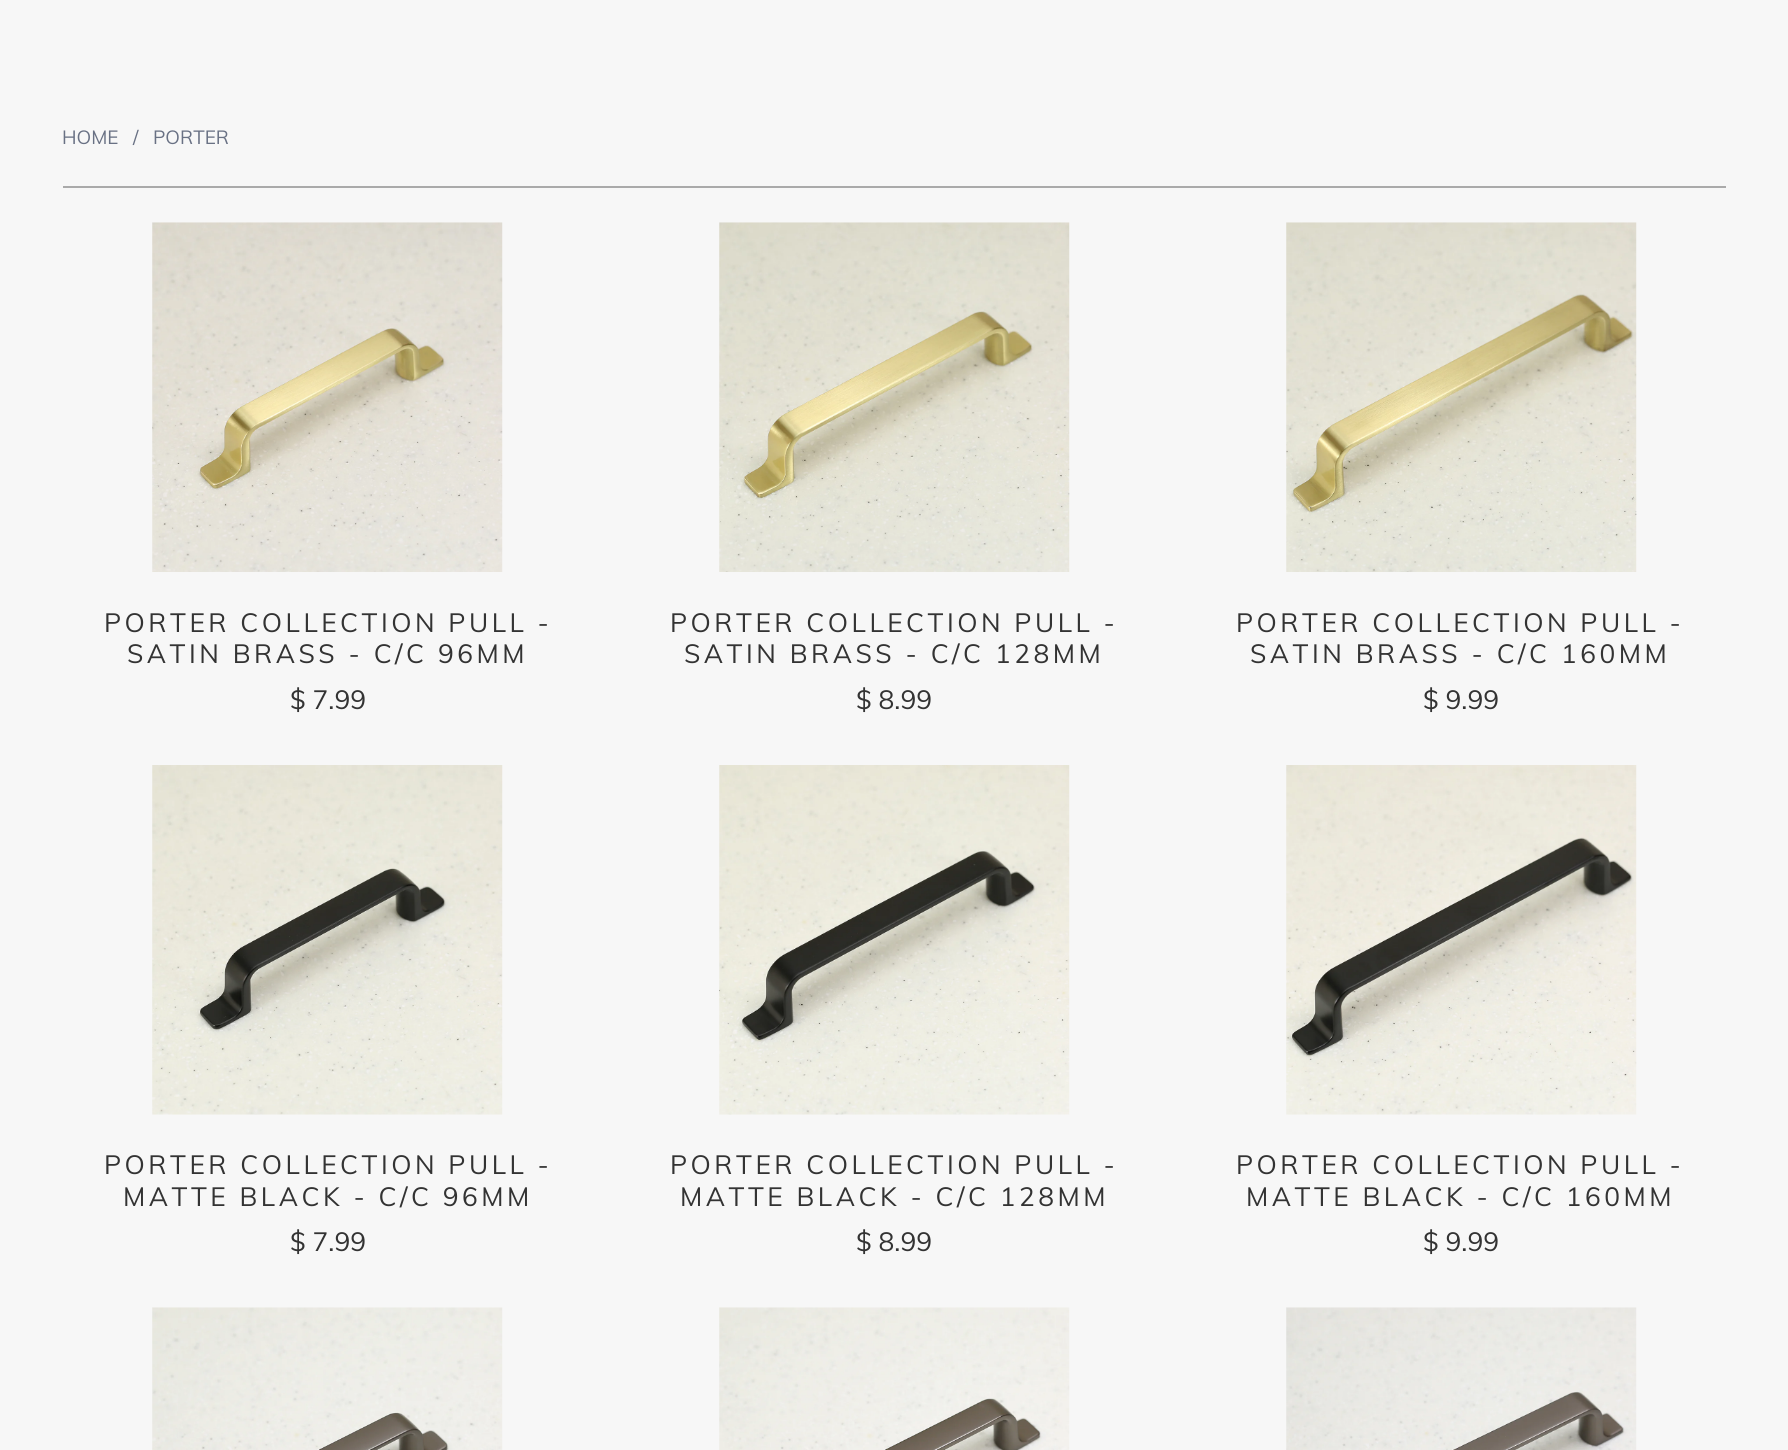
import math
import cairo

surface = cairo.ImageSurface(cairo.FORMAT_RGB24, 1788, 1450)
ctx = cairo.Context(surface)
options = cairo.FontOptions()
options.set_hint_metrics(cairo.HINT_METRICS_OFF)
options.set_hint_style(cairo.HINT_STYLE_NONE)
ctx.set_font_options(options)
ctx.set_miter_limit(4)


def set_color(code):
    ctx.set_source_rgb(*(v / 255 for v in bytes.fromhex(code[-6:])))


def draw_text(x, y, s, family, size, color, bold=False, italic=False):
    ctx.select_font_face(family, cairo.FONT_SLANT_ITALIC if italic else cairo.FONT_SLANT_NORMAL, cairo.FONT_WEIGHT_BOLD if bold else cairo.FONT_WEIGHT_NORMAL)
    ctx.set_font_size(size)
    set_color(color)
    ctx.move_to(x, y)
    ctx.show_text(s)


def draw_spaced(x, y, s, letter, word):
    ctx.move_to(x, y)
    for ch in s:
        ctx.show_text(ch)
        ctx.rel_move_to(letter + word * (ch == ' '), 0)


def fill_rect(x, y, w, h, color):
    set_color(color)
    ctx.rectangle(x, y, w, h)
    ctx.fill()


def draw_image(path, x, y, w, h):
    ctx.save()
    ctx.set_source_surface(cairo.ImageSurface.create_from_png(path), x, y)
    ctx.rectangle(x, y, w, h)
    ctx.fill()
    ctx.restore()


set_color("#f7f7f7")
ctx.paint()
draw_text(62, 144, "HOME", "Muli", 19, "#697184")
draw_text(133, 144, "/", "Muli", 19, "#697184")
draw_text(153, 144, "PORTER", "Muli", 19, "#697184")
fill_rect(63, 186, 1663, 2, "#aaaaaa")
draw_image("assets/img1.png", 152, 222, 351, 350)
ctx.set_font_size(26.25)
set_color("#333333")
draw_spaced(104, 632, "PORTER COLLECTION PULL -", 3.5, 0)
draw_spaced(127, 663, "SATIN BRASS - C/C 96MM", 3.5, 0)
draw_text(290, 709, "$ 7.99", "Muli", 26.25, "#333333")
draw_image("assets/img2.png", 719, 222, 351, 350)
draw_spaced(670, 632, "PORTER COLLECTION PULL -", 3.5, 0)
draw_spaced(684, 663, "SATIN BRASS - C/C 128MM", 3.5, 0)
draw_text(856, 709, "$ 8.99", "Muli", 26.25, "#333333")
draw_image("assets/img3.png", 1286, 222, 351, 350)
draw_spaced(1236, 632, "PORTER COLLECTION PULL -", 3.5, 0)
draw_spaced(1250, 663, "SATIN BRASS - C/C 160MM", 3.5, 0)
draw_text(1423, 709, "$ 9.99", "Muli", 26.25, "#333333")
draw_image("assets/img4.png", 152, 765, 351, 350)
draw_spaced(104, 1174, "PORTER COLLECTION PULL -", 3.5, 0)
draw_spaced(123, 1206, "MATTE BLACK - C/C 96MM", 3.5, 0)
draw_text(290, 1251, "$ 7.99", "Muli", 26.25, "#333333")
draw_image("assets/img5.png", 719, 765, 351, 350)
draw_spaced(670, 1174, "PORTER COLLECTION PULL -", 3.5, 0)
draw_spaced(680, 1206, "MATTE BLACK - C/C 128MM", 3.5, 0)
draw_text(856, 1251, "$ 8.99", "Muli", 26.25, "#333333")
draw_image("assets/img6.png", 1286, 765, 351, 350)
draw_spaced(1236, 1174, "PORTER COLLECTION PULL -", 3.5, 0)
draw_spaced(1246, 1206, "MATTE BLACK - C/C 160MM", 3.5, 0)
draw_text(1423, 1251, "$ 9.99", "Muli", 26.25, "#333333")
draw_image("assets/img7.png", 152, 1307, 351, 143)
draw_image("assets/img8.png", 719, 1307, 351, 143)
draw_image("assets/img9.png", 1286, 1307, 351, 143)
surface.write_to_png("output.png")
